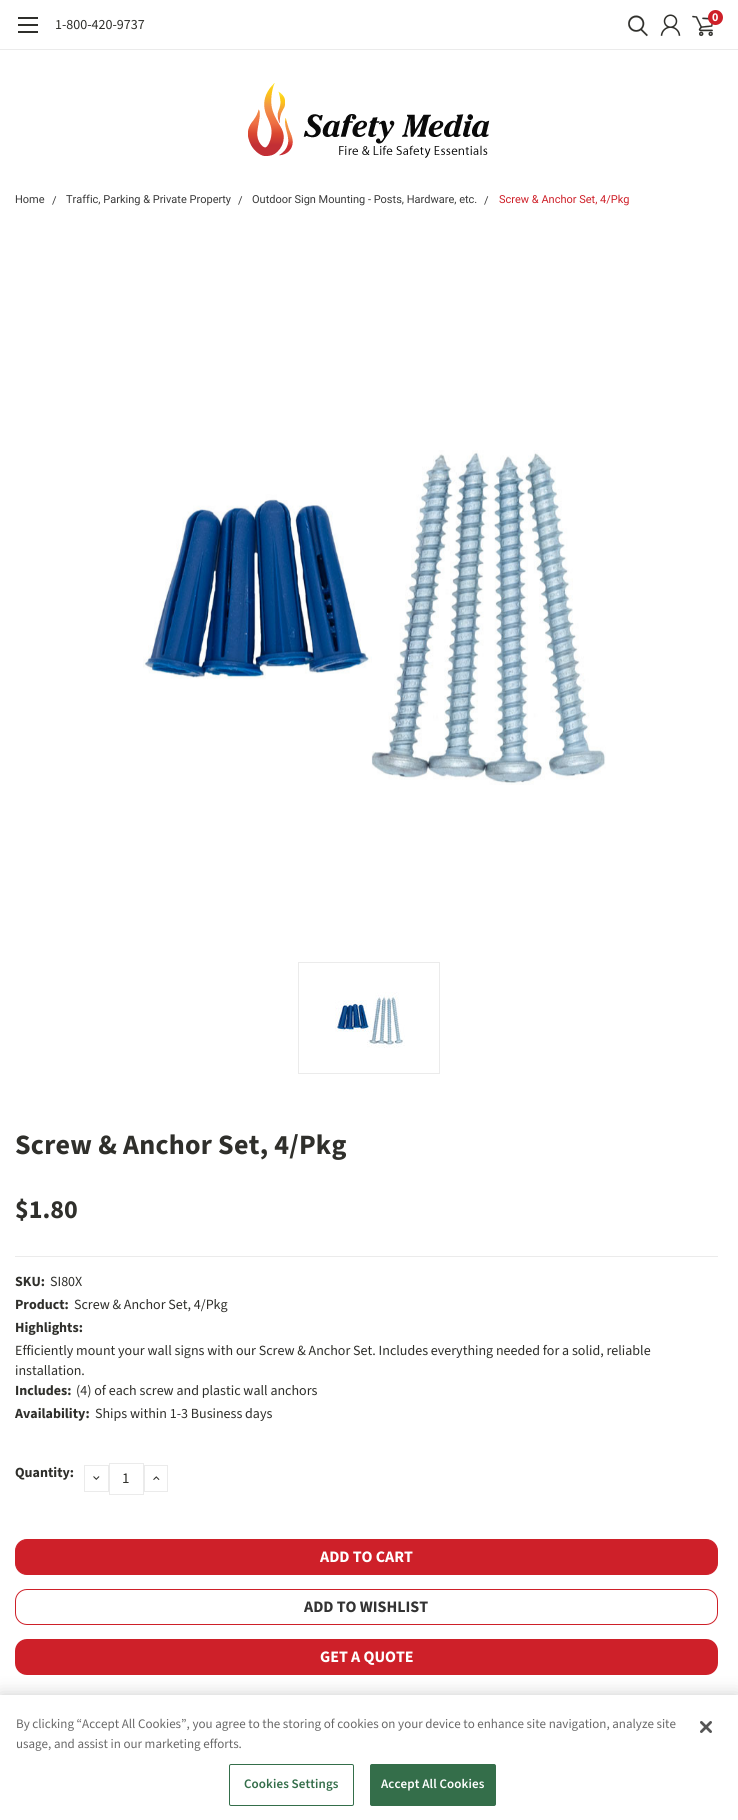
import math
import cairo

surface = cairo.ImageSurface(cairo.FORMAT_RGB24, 738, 1820)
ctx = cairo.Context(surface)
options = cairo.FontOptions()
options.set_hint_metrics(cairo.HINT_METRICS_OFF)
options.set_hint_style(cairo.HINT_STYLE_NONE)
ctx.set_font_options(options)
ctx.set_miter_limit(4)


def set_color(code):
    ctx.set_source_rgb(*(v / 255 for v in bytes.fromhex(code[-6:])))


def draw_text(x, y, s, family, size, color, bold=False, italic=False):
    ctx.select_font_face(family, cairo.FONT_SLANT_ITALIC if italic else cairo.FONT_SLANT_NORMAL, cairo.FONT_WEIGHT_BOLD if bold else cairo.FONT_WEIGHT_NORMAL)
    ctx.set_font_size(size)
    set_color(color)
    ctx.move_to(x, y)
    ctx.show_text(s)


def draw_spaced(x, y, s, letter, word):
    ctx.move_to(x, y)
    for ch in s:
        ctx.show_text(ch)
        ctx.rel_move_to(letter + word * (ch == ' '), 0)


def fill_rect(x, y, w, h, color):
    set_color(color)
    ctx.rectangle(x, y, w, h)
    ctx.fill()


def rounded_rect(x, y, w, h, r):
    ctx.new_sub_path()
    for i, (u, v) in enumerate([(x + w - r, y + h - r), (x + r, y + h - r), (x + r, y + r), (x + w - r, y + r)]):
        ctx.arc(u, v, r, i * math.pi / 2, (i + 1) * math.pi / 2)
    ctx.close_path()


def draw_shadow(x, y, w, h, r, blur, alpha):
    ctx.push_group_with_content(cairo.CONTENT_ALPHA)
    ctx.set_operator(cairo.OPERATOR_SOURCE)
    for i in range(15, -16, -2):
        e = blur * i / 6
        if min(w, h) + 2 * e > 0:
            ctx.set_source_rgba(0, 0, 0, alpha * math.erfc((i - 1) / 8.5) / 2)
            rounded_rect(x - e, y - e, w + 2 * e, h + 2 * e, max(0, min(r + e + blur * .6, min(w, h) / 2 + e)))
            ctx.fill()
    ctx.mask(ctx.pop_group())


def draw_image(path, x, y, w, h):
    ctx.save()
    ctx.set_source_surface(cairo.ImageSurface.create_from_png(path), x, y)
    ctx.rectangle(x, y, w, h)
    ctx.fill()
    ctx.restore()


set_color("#ffffff")
ctx.paint()
fill_rect(0, 49, 738, 1, "#ebebeb")
fill_rect(18, 24, 20, 2, "#2f2f2b")
fill_rect(18, 17, 20, 2, "#2f2f2b")
fill_rect(18, 31, 20, 2, "#2f2f2b")
draw_text(55, 29, "1-800-420-9737", "Source Sans 3", 14, "#2f2f2b")
draw_image("assets/img1.png", 628, 15, 20, 22)
draw_image("assets/img2.png", 660, 14, 21, 22)
draw_image("assets/img3.png", 692, 15, 21, 22)
set_color("#ce2029")
ctx.arc(715.5, 17.5, 7.5, 0, 2 * math.pi)
ctx.fill()
draw_text(712, 21, "0", "Source Sans 3", 12, "#ffffff", bold=True)
draw_image("assets/img4.png", 248, 83, 242, 75)
draw_text(15, 203, "Home", "Roboto", 11, "#393939")
draw_text(52, 204, "/", "Roboto", 11, "#393939")
draw_text(66, 203, "Traffic, Parking & Private Property", "Roboto", 11, "#393939")
draw_text(238, 204, "/", "Roboto", 11, "#393939")
draw_text(252, 203, "Outdoor Sign Mounting - Posts, Hardware, etc.", "Roboto", 11, "#393939")
draw_text(484, 204, "/", "Roboto", 11, "#393939")
draw_text(499, 203, "Screw & Anchor Set, 4/Pkg", "Roboto", 11, "#ce2029")
draw_image("assets/img5.png", 143, 450, 463, 335)
ctx.rectangle(298.5, 962.5, 141, 111)
set_color("#ebebeb")
ctx.set_line_width(1)
ctx.stroke()
draw_image("assets/img6.png", 335, 992, 70, 56)
ctx.select_font_face("Source Sans 3", cairo.FONT_SLANT_NORMAL, cairo.FONT_WEIGHT_BOLD)
ctx.set_font_size(28)
set_color("#2f2f2b")
draw_spaced(15, 1154, "Screw & Anchor Set, 4/Pkg", 0.25, 0)
draw_text(15, 1218, "$1.80", "Source Sans 3", 26, "#2f2f2b", bold=True)
fill_rect(15, 1256, 703, 1, "#ebebeb")
draw_text(15, 1286, "SKU:", "Source Sans 3", 14, "#2f2f2b", bold=True)
draw_text(50, 1286, "SI80X", "Source Sans 3", 14, "#2f2f2b")
draw_text(15, 1309, "Product:", "Source Sans 3", 14, "#2f2f2b", bold=True)
draw_text(74, 1309, "Screw & Anchor Set, 4/Pkg", "Source Sans 3", 14, "#2f2f2b")
draw_text(15, 1332, "Highlights:", "Source Sans 3", 14, "#2f2f2b", bold=True)
draw_text(15, 1355, "Efficiently mount your wall signs with our Screw & Anchor Set. Includes everything needed for a solid, reliable", "Source Sans 3", 14, "#2f2f2b")
draw_text(15, 1375, "installation.", "Source Sans 3", 14, "#2f2f2b")
draw_text(15, 1395, "Includes:", "Source Sans 3", 14, "#2f2f2b", bold=True)
draw_text(76, 1395, "(4) of each screw and plastic wall anchors", "Source Sans 3", 14, "#2f2f2b")
draw_text(15, 1418, "Availability:", "Source Sans 3", 14, "#2f2f2b", bold=True)
draw_text(95, 1418, "Ships within 1-3 Business days", "Source Sans 3", 14, "#2f2f2b")
draw_text(15, 1477, "Quantity:", "Source Sans 3", 14, "#2f2f2b", bold=True)
ctx.rectangle(84.5, 1465.5, 24, 26)
set_color("#ebebeb")
ctx.stroke()
draw_image("assets/img7.png", 93, 1476, 7, 4)
ctx.rectangle(109.5, 1463.5, 34, 31)
ctx.stroke()
draw_text(122, 1483, "1", "Source Sans 3", 15, "#2f2f2b")
ctx.rectangle(144.5, 1465.5, 23, 26)
set_color("#ebebeb")
ctx.stroke()
draw_image("assets/img8.png", 153, 1476, 7, 4)
set_color("#ce2029")
rounded_rect(15.5, 1539.5, 702, 35, 11.5)
ctx.fill_preserve()
ctx.stroke()
draw_text(320, 1562, "ADD TO CART", "Source Sans 3", 16, "#ffffff", bold=True)
rounded_rect(15.5, 1589.5, 702, 35, 11.5)
set_color("#ce2029")
ctx.stroke()
draw_text(304, 1612, "ADD TO WISHLIST", "Source Sans 3", 16, "#333333", bold=True)
set_color("#ce2029")
rounded_rect(15, 1639, 703, 36, 12)
ctx.fill()
draw_text(320, 1662, "GET A QUOTE", "Source Sans 3", 16, "#ffffff", bold=True)
set_color("#000000")
draw_shadow(0, 1695, 738, 125, 0, 9, 0.2)
fill_rect(0, 1695, 738, 125, "#ffffff")
draw_text(16, 1728, "By clicking “Accept All Cookies”, you agree to the storing of cookies on your device to enhance site navigation, analyze site", "Source Sans 3", 13, "#696969")
draw_text(16, 1748, "usage, and assist in our marketing efforts.", "Source Sans 3", 13, "#696969")
rounded_rect(229.5, 1764.5, 124, 41, 1.5)
set_color("#346e4a")
ctx.stroke()
ctx.select_font_face("Source Sans 3 SemiBold")
draw_spaced(244, 1788, "Cookies Settings", 0.1, 0)
rounded_rect(370.5, 1764.5, 125, 41, 1.5)
ctx.fill_preserve()
ctx.stroke()
set_color("#ffffff")
draw_spaced(381, 1788, "Accept All Cookies", 0.1, 0)
draw_image("assets/img9.png", 700, 1721, 12, 12)
surface.write_to_png("output.png")
